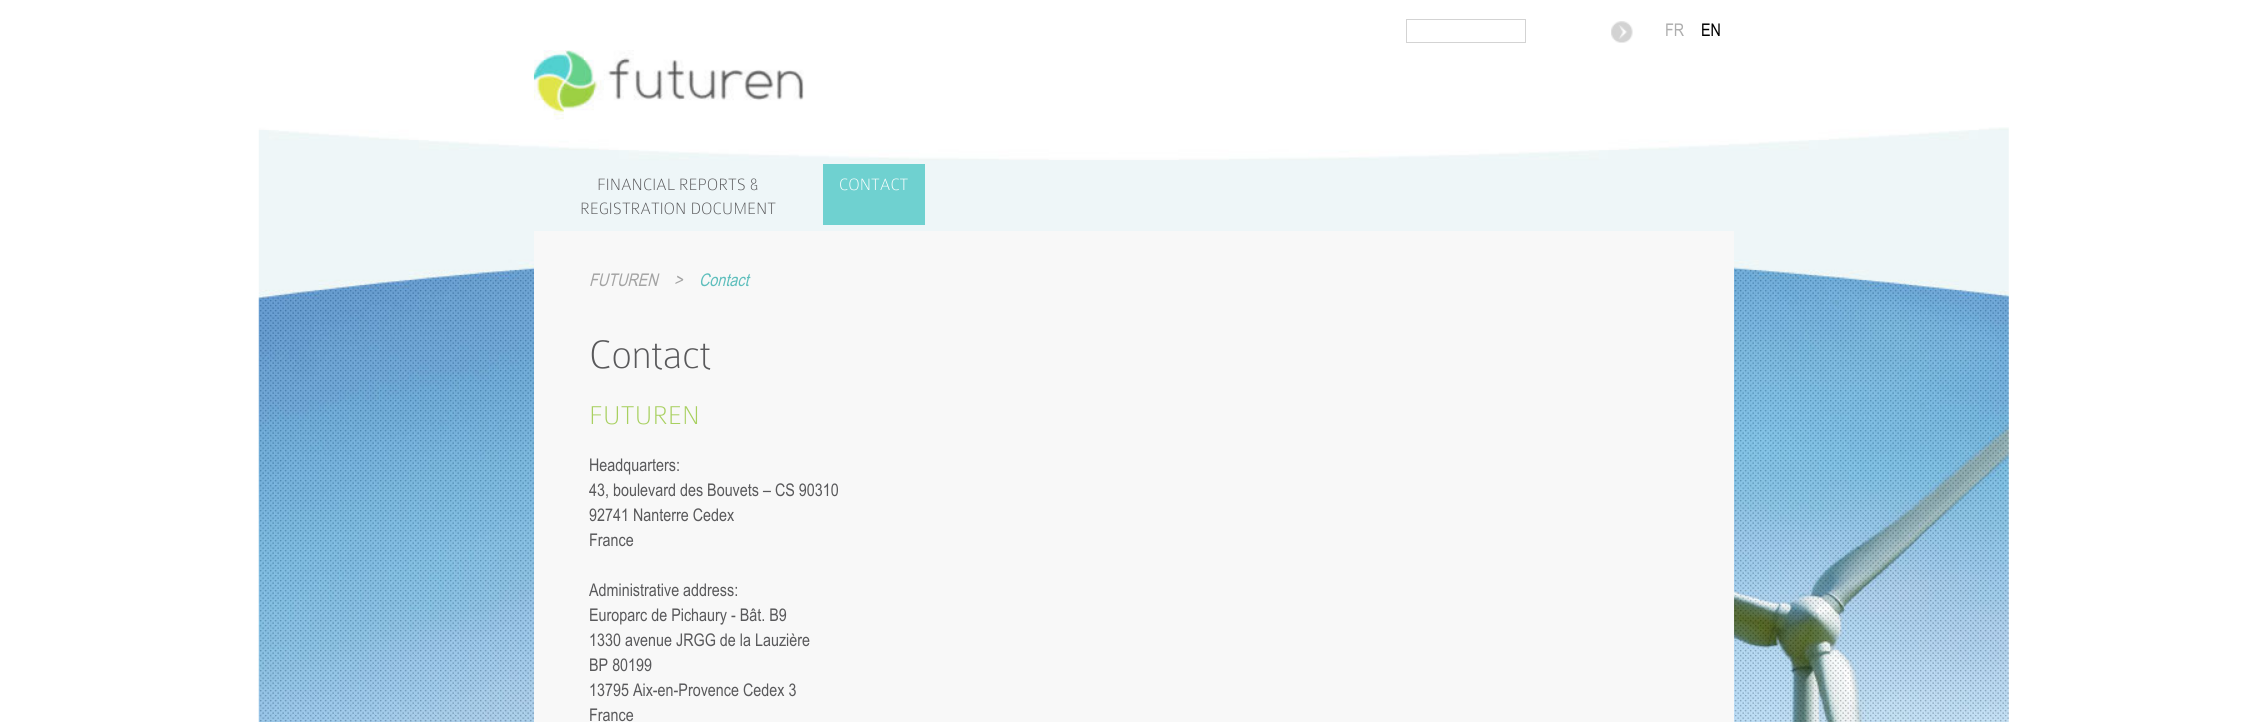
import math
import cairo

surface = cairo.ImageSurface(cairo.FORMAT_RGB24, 2266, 722)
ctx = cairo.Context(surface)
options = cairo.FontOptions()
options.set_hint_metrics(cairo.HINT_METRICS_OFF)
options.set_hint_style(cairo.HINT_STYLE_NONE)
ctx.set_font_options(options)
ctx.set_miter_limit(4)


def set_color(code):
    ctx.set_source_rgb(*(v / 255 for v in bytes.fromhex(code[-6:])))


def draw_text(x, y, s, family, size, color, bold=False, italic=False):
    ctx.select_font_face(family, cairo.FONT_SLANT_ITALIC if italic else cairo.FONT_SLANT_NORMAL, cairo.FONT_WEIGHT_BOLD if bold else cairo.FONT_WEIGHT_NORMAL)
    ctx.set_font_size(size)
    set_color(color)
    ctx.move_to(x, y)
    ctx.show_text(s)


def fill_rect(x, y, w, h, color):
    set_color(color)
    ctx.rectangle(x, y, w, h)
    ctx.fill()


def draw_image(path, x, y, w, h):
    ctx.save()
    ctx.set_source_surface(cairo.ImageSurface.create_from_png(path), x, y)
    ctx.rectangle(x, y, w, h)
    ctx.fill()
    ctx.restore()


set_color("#ffffff")
ctx.paint()
draw_image("assets/img1.png", 258, 127, 1751, 595)
ctx.rectangle(1406.5, 19.5, 119, 23)
set_color("#d3d3d3")
ctx.set_line_width(1)
ctx.stroke()
draw_image("assets/img2.png", 1611, 21, 22, 22)
draw_text(1665, 36, "FR", "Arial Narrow", 17.5, "#aeaeae")
draw_text(1701, 36, "EN", "Arial Narrow", 17.5, "#000000")
draw_image("assets/img3.png", 533, 50, 271, 70)
draw_text(597, 190, "FINANCIAL REPORTS &", "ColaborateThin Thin", 17.5, "#59595b")
draw_text(580, 214, "REGISTRATION DOCUMENT", "ColaborateThin Thin", 17.5, "#59595b")
fill_rect(823, 164, 102, 61, "#6fd1d0")
draw_text(839, 190, "CONTACT", "ColaborateThin Thin", 17.5, "#ffffff")
fill_rect(534, 231, 1200, 491, "#f8f8f8")
draw_text(589, 286, "FUTUREN", "Arial Narrow", 17.5, "#a4a4a4", italic=True)
draw_text(674, 286, ">", "Arial Narrow", 17.5, "#a4a4a4", italic=True)
draw_text(699, 286, "Contact", "Arial Narrow", 17.5, "#5dbebc", italic=True)
draw_text(589, 368, "Contact", "ColaborateThin Thin", 42.5, "#59595b")
draw_text(589, 424, "FUTUREN", "ColaborateThin Thin", 27.5, "#a8d060")
draw_text(589, 471, "Headquarters:", "Arial Narrow", 17.5, "#59595b")
draw_text(589, 496, "43, boulevard des Bouvets – CS 90310", "Arial Narrow", 17.5, "#59595b")
draw_text(589, 521, "92741 Nanterre Cedex", "Arial Narrow", 17.5, "#59595b")
draw_text(589, 546, "France", "Arial Narrow", 17.5, "#59595b")
draw_text(589, 596, "Administrative address:", "Arial Narrow", 17.5, "#59595b")
draw_text(589, 621, "Europarc de Pichaury - Bât. B9", "Arial Narrow", 17.5, "#59595b")
draw_text(589, 646, "1330 avenue JRGG de la Lauzière", "Arial Narrow", 17.5, "#59595b")
draw_text(589, 671, "BP 80199", "Arial Narrow", 17.5, "#59595b")
draw_text(589, 696, "13795 Aix-en-Provence Cedex 3", "Arial Narrow", 17.5, "#59595b")
draw_text(589, 721, "France", "Arial Narrow", 17.5, "#59595b")
surface.write_to_png("output.png")
